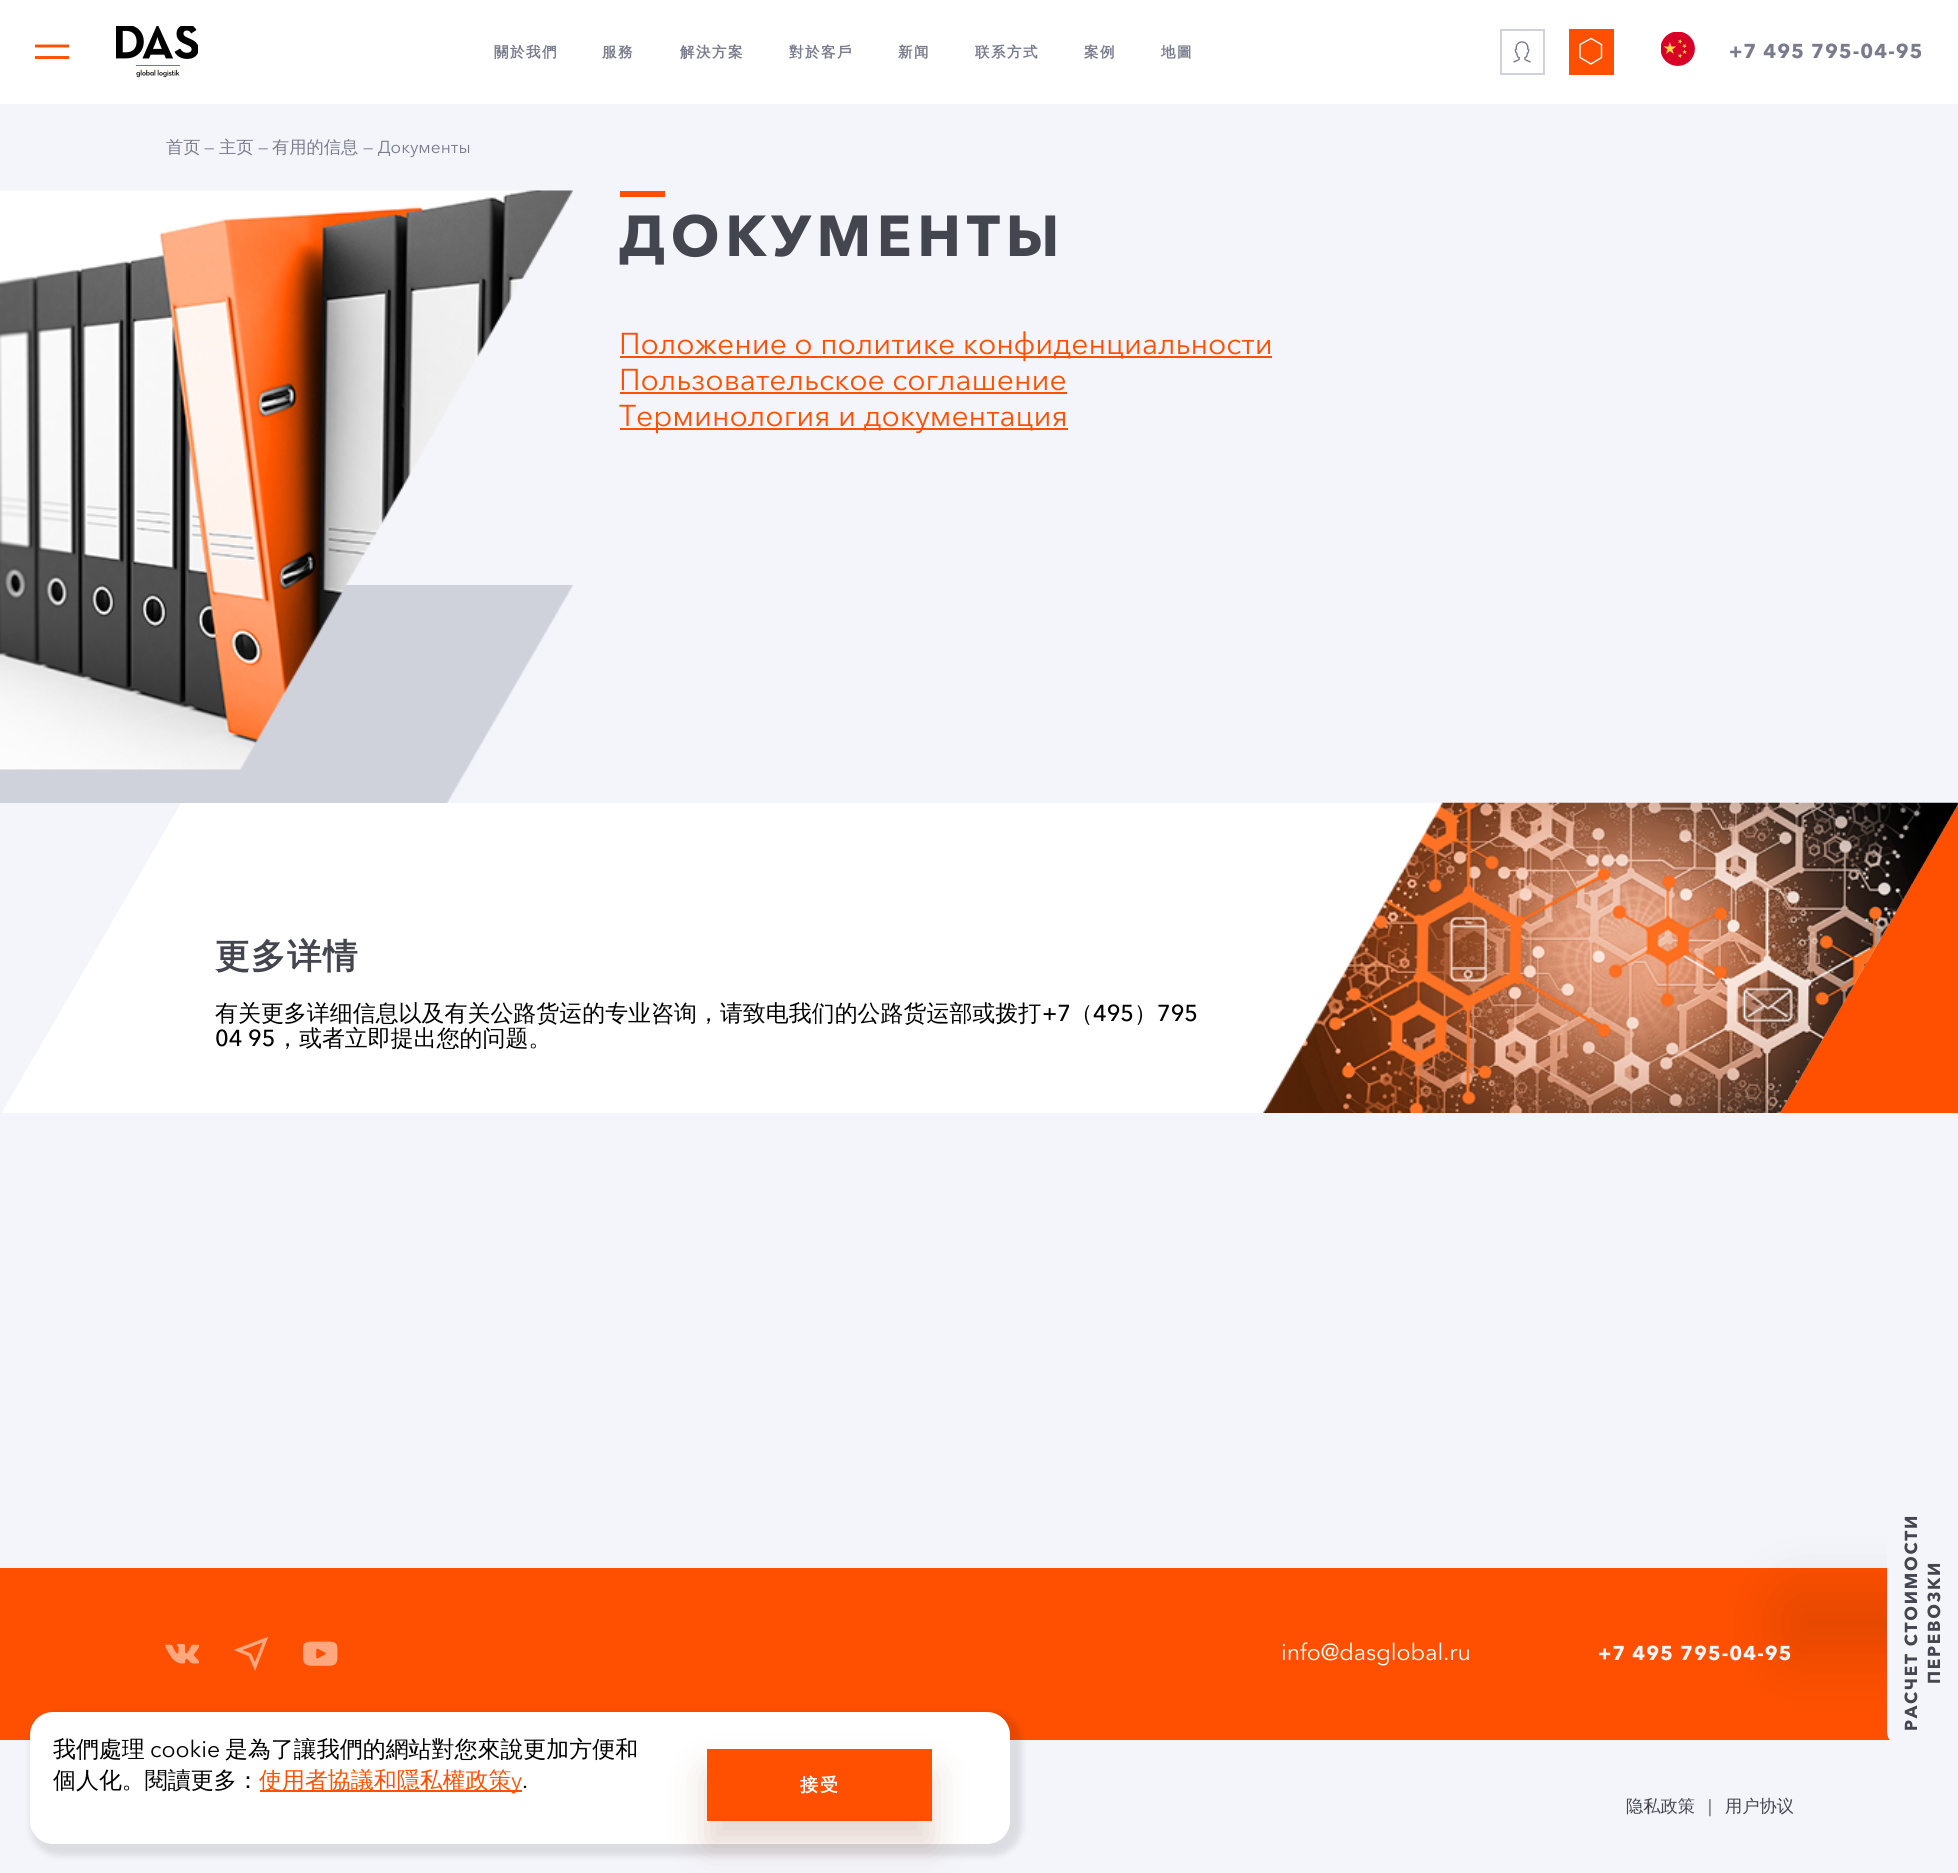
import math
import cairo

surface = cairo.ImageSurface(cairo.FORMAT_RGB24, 1958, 1873)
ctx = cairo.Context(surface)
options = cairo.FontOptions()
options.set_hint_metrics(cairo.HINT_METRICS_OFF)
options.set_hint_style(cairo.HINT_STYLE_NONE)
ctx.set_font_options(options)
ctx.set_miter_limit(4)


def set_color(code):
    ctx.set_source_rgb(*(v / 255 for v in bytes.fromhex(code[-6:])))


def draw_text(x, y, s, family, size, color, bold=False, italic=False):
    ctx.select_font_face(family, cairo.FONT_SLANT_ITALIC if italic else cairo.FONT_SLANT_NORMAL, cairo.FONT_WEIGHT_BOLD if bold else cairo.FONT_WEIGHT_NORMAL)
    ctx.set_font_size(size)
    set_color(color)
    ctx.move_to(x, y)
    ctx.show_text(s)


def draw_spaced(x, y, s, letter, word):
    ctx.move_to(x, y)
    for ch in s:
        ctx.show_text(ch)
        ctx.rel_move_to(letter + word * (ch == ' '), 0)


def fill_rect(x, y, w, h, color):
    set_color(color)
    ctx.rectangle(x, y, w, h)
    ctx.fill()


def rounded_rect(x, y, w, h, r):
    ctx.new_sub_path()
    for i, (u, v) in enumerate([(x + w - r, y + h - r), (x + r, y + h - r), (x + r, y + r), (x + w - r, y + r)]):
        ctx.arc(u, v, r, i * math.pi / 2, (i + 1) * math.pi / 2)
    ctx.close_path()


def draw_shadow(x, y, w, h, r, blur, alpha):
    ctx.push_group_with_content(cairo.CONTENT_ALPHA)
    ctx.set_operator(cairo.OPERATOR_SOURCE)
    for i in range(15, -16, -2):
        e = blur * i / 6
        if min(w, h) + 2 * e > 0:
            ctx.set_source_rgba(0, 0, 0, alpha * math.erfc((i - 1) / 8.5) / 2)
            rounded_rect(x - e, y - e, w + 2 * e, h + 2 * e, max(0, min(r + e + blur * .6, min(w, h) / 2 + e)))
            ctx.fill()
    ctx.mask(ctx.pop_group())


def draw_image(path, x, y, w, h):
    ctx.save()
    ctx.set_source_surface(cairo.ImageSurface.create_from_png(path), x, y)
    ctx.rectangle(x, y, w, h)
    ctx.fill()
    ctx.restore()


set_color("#f4f5fb")
ctx.paint()
fill_rect(0, 0, 1958, 104, "#ffffff")
ctx.save()
ctx.rectangle(35, 35, 34, 34)
ctx.clip()
ctx.new_path()
ctx.move_to(34.5, 46)
ctx.line_to(69, 46)
set_color("#fe5000")
ctx.set_line_width(2.9)
ctx.stroke()
ctx.restore()
fill_rect(35, 56, 34, 3, "#fe5609")
draw_image("assets/img1.png", 116, 26, 82, 52)
ctx.select_font_face("WenQuanYi Zen Hei", cairo.FONT_SLANT_NORMAL, cairo.FONT_WEIGHT_BOLD)
ctx.set_font_size(14.5)
set_color("#797c8d")
draw_spaced(494, 57, "關於我們", 1.5, 0)
draw_spaced(602, 57, "服務", 1.5, 0)
draw_spaced(680, 57, "解決方案", 1.5, 0)
draw_spaced(789, 57, "對於客戶", 1.5, 0)
draw_spaced(898, 57, "新闻", 1.5, 0)
draw_spaced(975, 57, "联系方式", 1.5, 0)
draw_spaced(1084, 57, "案例", 1.5, 0)
draw_spaced(1161, 57, "地圖", 1.5, 0)
draw_image("assets/img2.png", 1513, 41, 18, 22)
ctx.rectangle(1501, 30, 43, 44)
set_color("#cfd1db")
ctx.stroke()
fill_rect(1569, 29, 45, 46, "#fe5000")
ctx.new_path()
ctx.move_to(1580, 44.5)
ctx.line_to(1591, 38.5)
ctx.line_to(1601.5, 44.5)
ctx.line_to(1601.5, 57.5)
ctx.line_to(1591, 64)
ctx.line_to(1580, 57.5)
ctx.close_path()
set_color("#ffffff")
ctx.set_line_width(1.4)
ctx.stroke()
draw_image("assets/img3.png", 1661, 32, 34, 34)
ctx.select_font_face("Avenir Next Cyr", cairo.FONT_SLANT_NORMAL, cairo.FONT_WEIGHT_BOLD)
ctx.set_font_size(20)
set_color("#797c8d")
draw_spaced(1729, 58, "+7 495 795-04-95", 1, 0)
draw_text(166, 153, "首页", "WenQuanYi Zen Hei Medium", 17.25, "#797c8d")
draw_text(204, 153, "—", "Avenir Next Cyr", 17.25, "#797c8d")
draw_text(219, 153, "主页", "WenQuanYi Zen Hei Medium", 17.25, "#797c8d")
draw_text(258, 153, "—", "Avenir Next Cyr", 17.25, "#797c8d")
draw_text(272, 153, "有用的信息", "WenQuanYi Zen Hei Medium", 17.25, "#797c8d")
draw_text(363, 153, "— Документы", "Avenir Next Cyr", 17.25, "#797c8d")
draw_image("assets/img5.png", 0, 585, 573, 218)
draw_image("assets/img4.png", 0, 190, 573, 580)
fill_rect(620, 191, 45, 6, "#fe5000")
ctx.select_font_face("Avenir Next Cyr", cairo.FONT_SLANT_NORMAL, cairo.FONT_WEIGHT_BOLD)
ctx.set_font_size(57.25)
set_color("#43464e")
draw_spaced(619, 256, "ДОКУМЕНТЫ", 5.75, 0)
fill_rect(620, 356, 652, 2, "#fe5000")
draw_text(619, 354, "Положение о политике конфиденциальности", "Avenir Next Cyr", 30, "#fe5000")
draw_text(619, 390, "Пользовательское соглашение", "Avenir Next Cyr", 30, "#fe5000")
fill_rect(620, 392, 447, 2, "#fe5000")
fill_rect(620, 428, 448, 2, "#fe5000")
draw_text(619, 426, "Терминология и документация", "Avenir Next Cyr", 30, "#fe5000")
fill_rect(1, 803, 1957, 310, "#ffffff")
set_color("#f4f5fb")
ctx.new_path()
ctx.move_to(-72, 803)
ctx.line_to(181, 803)
ctx.line_to(1, 1114)
ctx.line_to(-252, 1114)
ctx.close_path()
ctx.fill()
ctx.select_font_face("WenQuanYi Zen Hei", cairo.FONT_SLANT_NORMAL, cairo.FONT_WEIGHT_BOLD)
ctx.set_font_size(34.5)
set_color("#43464e")
draw_spaced(215, 968, "更多详情", 1.5, 0)
draw_text(215, 1021, "有关更多详细信息以及有关公路货运的专业咨询，请致电我们的公路货运部或拨打", "WenQuanYi Zen Hei Medium", 22.95, "#000000")
draw_text(1042, 1021, "+7", "Avenir Next Cyr Medium", 22.95, "#000000")
draw_text(1070, 1021, "（", "WenQuanYi Zen Hei Medium", 22.95, "#000000")
draw_text(1093, 1021, "495", "Avenir Next Cyr Medium", 22.95, "#000000")
draw_text(1134, 1021, "）", "WenQuanYi Zen Hei Medium", 22.95, "#000000")
draw_text(1157, 1021, "795", "Avenir Next Cyr Medium", 22.95, "#000000")
draw_text(215, 1046, "04 95", "Avenir Next Cyr Medium", 22.95, "#000000")
draw_text(276, 1046, "，或者立即提出您的问题。", "WenQuanYi Zen Hei Medium", 22.95, "#000000")
draw_image("assets/img6.png", 1263, 802, 695, 311)
ctx.save()
ctx.rectangle(0, 803, 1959, 310)
ctx.clip()
set_color("#fe5000")
ctx.new_path()
ctx.move_to(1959, 803)
ctx.line_to(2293, 803)
ctx.line_to(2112, 1117)
ctx.line_to(1778, 1117)
ctx.close_path()
ctx.fill()
ctx.restore()
fill_rect(0, 1568, 1890, 172, "#fe5000")
set_color("#000000")
draw_shadow(1776, 1587, 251, 72, 17, 28.5, 0.1)
set_color("#f4f5fb")
ctx.new_path()
ctx.move_to(1887, 1731)
ctx.line_to(1887, 1514)
ctx.curve_to(1887, 1505, 1894, 1497, 1904, 1497)
ctx.line_to(1958, 1497)
ctx.line_to(1958, 1748)
ctx.line_to(1904, 1748)
ctx.curve_to(1894, 1748, 1887, 1740, 1887, 1731)
ctx.close_path()
ctx.fill()
ctx.select_font_face("Avenir Next Cyr", cairo.FONT_SLANT_NORMAL, cairo.FONT_WEIGHT_BOLD)
ctx.set_font_size(17.25)
set_color("#43464e")
ctx.save()
ctx.translate(1917, 1731)
ctx.rotate(-90 * math.pi / 180)
draw_spaced(0, 0, "РАСЧЕТ СТОИМОСТИ", 1.75, 0)
ctx.restore()
ctx.save()
ctx.translate(1940, 1684)
ctx.rotate(-90 * math.pi / 180)
draw_spaced(0, 0, "ПЕРЕВОЗКИ", 1.75, 0)
ctx.restore()
set_color("#000000")
draw_shadow(30, 1712, 992, 144, 29, 3, 0.1)
set_color("#ffffff")
rounded_rect(30, 1712, 980, 132, 23)
ctx.fill()
draw_text(53, 1757, "我們處理", "WenQuanYi Zen Hei Medium", 22.95, "#000000")
draw_text(150, 1757, "cookie", "Avenir Next Cyr", 22.95, "#000000")
draw_text(225, 1757, "是為了讓我們的網站對您來說更加方便和", "WenQuanYi Zen Hei Medium", 22.95, "#000000")
draw_text(53, 1788, "個人化。閱讀更多：", "WenQuanYi Zen Hei Medium", 22.95, "#000000")
fill_rect(260, 1790, 262, 2, "#fe5000")
draw_text(259, 1788, "使用者協議和隱私權政策", "WenQuanYi Zen Hei Medium", 22.95, "#fe5000")
draw_text(511, 1788, "y", "Avenir Next Cyr", 22.95, "#fe5000")
draw_text(522, 1788, ".", "Avenir Next Cyr", 22.95, "#000000")
set_color("#7f3818")
draw_shadow(707, 1773, 225, 72, 0, 18, 0.2)
fill_rect(707, 1749, 225, 72, "#fe5000")
ctx.select_font_face("WenQuanYi Zen Hei", cairo.FONT_SLANT_NORMAL, cairo.FONT_WEIGHT_BOLD)
ctx.set_font_size(18)
set_color("#ffffff")
draw_spaced(800, 1791, "接受", 2, 0)
draw_image("assets/img7.png", 165, 1643, 34, 21)
ctx.save()
ctx.rectangle(234, 1637, 35, 34)
ctx.clip()
ctx.new_path()
ctx.move_to(238, 1650)
ctx.line_to(265.5, 1639.5)
ctx.line_to(255, 1666.5)
ctx.line_to(250, 1655)
ctx.close_path()
set_color("#ffa880")
ctx.set_line_width(3.3)
ctx.stroke()
ctx.restore()
draw_image("assets/img8.png", 303, 1641, 35, 25)
draw_text(1281, 1660, "info@dasglobal.ru", "Avenir Next Cyr", 22.95, "#ffffff")
ctx.select_font_face("Avenir Next Cyr", cairo.FONT_SLANT_NORMAL, cairo.FONT_WEIGHT_BOLD)
ctx.set_font_size(20)
set_color("#f4f5fb")
draw_spaced(1598, 1660, "+7 495 795-04-95", 1, 0)
draw_text(1626, 1812, "隐私政策", "WenQuanYi Zen Hei Medium", 17.25, "#43464e")
draw_text(1708, 1812, "|", "Avenir Next Cyr", 17.25, "#43464e")
draw_text(1725, 1812, "用户协议", "WenQuanYi Zen Hei Medium", 17.25, "#43464e")
surface.write_to_png("output.png")
